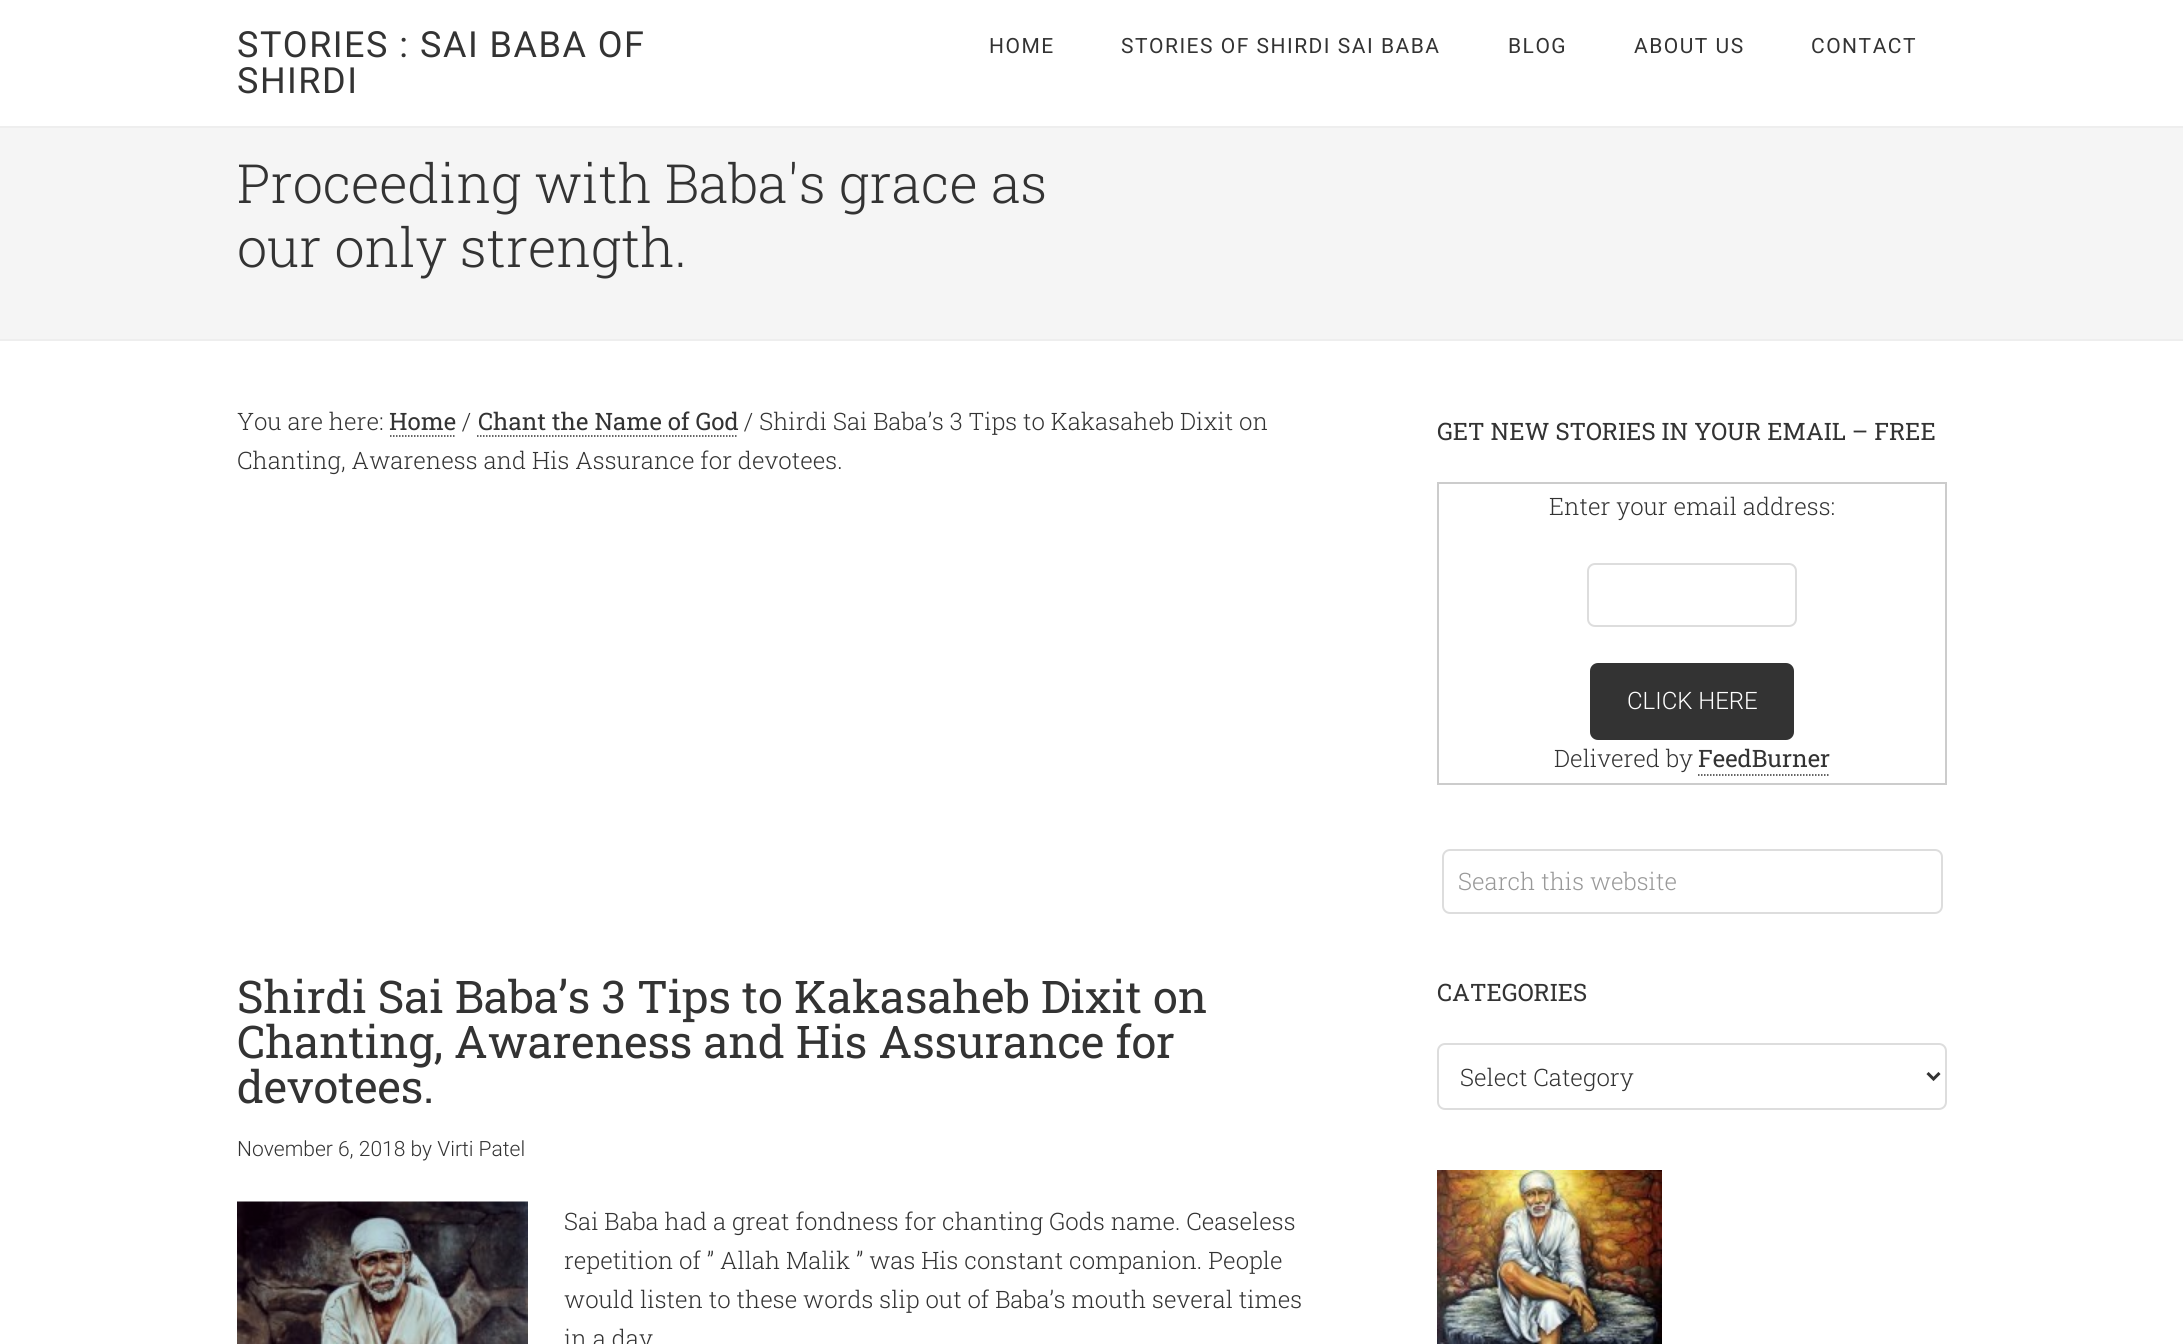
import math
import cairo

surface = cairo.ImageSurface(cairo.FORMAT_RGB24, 2183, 1344)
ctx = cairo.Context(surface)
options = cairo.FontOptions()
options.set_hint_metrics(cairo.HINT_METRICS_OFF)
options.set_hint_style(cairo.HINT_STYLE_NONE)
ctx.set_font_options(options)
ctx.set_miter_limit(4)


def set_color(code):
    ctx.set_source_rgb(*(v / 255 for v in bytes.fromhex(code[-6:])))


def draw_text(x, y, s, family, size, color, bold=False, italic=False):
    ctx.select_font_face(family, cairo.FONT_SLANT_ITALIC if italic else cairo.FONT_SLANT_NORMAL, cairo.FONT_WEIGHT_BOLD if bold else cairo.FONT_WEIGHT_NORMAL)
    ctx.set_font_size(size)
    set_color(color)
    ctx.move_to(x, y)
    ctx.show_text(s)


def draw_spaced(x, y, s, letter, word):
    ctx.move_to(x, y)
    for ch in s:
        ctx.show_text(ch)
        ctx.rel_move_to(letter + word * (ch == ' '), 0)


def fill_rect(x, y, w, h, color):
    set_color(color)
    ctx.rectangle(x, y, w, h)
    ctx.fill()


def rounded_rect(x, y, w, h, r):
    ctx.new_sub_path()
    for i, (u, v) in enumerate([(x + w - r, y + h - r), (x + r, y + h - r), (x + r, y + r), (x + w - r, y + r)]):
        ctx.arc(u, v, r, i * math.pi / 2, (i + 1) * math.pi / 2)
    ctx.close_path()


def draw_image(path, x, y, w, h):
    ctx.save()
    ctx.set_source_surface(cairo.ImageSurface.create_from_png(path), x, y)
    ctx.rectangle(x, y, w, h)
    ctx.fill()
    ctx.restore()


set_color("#ffffff")
ctx.paint()
fill_rect(0, 126, 2183, 2, "#eeeeee")
ctx.select_font_face("Roboto")
ctx.set_font_size(36)
set_color("#333333")
draw_spaced(237, 57, "STORIES : SAI BABA OF", 1.5, 0)
draw_spaced(237, 93, "SHIRDI", 1.5, 0)
ctx.set_font_size(21)
draw_spaced(989, 53, "HOME", 1.5, 0)
draw_spaced(1121, 53, "STORIES OF SHIRDI SAI BABA", 1.5, 0)
draw_spaced(1508, 53, "BLOG", 1.5, 0)
draw_spaced(1634, 53, "ABOUT US", 1.5, 0)
draw_spaced(1811, 53, "CONTACT", 1.5, 0)
fill_rect(0, 128, 2183, 211, "#f5f5f5")
fill_rect(0, 339, 2183, 2, "#eeeeee")
draw_text(237, 203, "Proceeding with Baba's grace as", "Roboto Slab Light", 54, "#333333")
draw_text(237, 267, "our only strength.", "Roboto Slab Light", 54, "#333333")
draw_text(237, 430, "You are here:", "Roboto Slab Light", 24, "#333333")
draw_text(389, 430, "Home", "Roboto Slab", 24, "#333333")
ctx.new_path()
ctx.move_to(390, 436)
ctx.line_to(456, 436)
ctx.set_line_width(1.5)
ctx.set_dash([1.5, 1.5])
ctx.stroke()
draw_text(462, 430, "/", "Roboto Slab Light", 24, "#333333")
draw_text(478, 430, "Chant the Name of God", "Roboto Slab", 24, "#333333")
ctx.new_path()
ctx.move_to(477, 436)
ctx.line_to(738, 436)
ctx.stroke()
draw_text(744, 430, "/ Shirdi Sai Baba’s 3 Tips to Kakasaheb Dixit on", "Roboto Slab Light", 24, "#333333")
draw_text(237, 469, "Chanting, Awareness and His Assurance for devotees.", "Roboto Slab Light", 24, "#333333")
draw_text(237, 1013, "Shirdi Sai Baba’s 3 Tips to Kakasaheb Dixit on", "Roboto Slab", 45, "#333333")
draw_text(237, 1058, "Chanting, Awareness and His Assurance for", "Roboto Slab", 45, "#333333")
draw_text(237, 1103, "devotees.", "Roboto Slab", 45, "#333333")
draw_text(237, 1156, "November 6, 2018 by Virti Patel", "Roboto Light", 21, "#333333")
draw_image("assets/img1.png", 237, 1201, 291, 143)
draw_text(564, 1230, "Sai Baba had a great fondness for chanting Gods name. Ceaseless", "Roboto Slab Light", 24, "#333333")
draw_text(564, 1269, "repetition of ” Allah Malik ” was His constant companion. People", "Roboto Slab Light", 24, "#333333")
draw_text(564, 1308, "would listen to these words slip out of Baba’s mouth several times", "Roboto Slab Light", 24, "#333333")
draw_text(564, 1347, "in a day", "Roboto Slab Light", 24, "#333333")
draw_text(1437, 440, "GET NEW STORIES IN YOUR EMAIL – FREE", "Roboto Slab", 24, "#333333")
ctx.rectangle(1438, 483, 508, 301)
set_color("#cccccc")
ctx.set_line_width(2)
ctx.set_dash([])
ctx.stroke()
draw_text(1549, 515, "Enter your email address:", "Roboto Slab Light", 24, "#333333")
rounded_rect(1588, 564, 208, 62, 7)
set_color("#dddddd")
ctx.stroke()
set_color("#333333")
rounded_rect(1590, 663, 204, 77, 8)
ctx.fill()
draw_text(1627, 709, "CLICK HERE", "Roboto Light", 24, "#ffffff")
draw_text(1554, 767, "Delivered by", "Roboto Slab Light", 24, "#333333")
draw_text(1698, 767, "FeedBurner", "Roboto Slab", 24, "#333333")
ctx.new_path()
ctx.move_to(1698, 775)
ctx.line_to(1830, 775)
ctx.set_line_width(1.5)
ctx.set_dash([1.5, 1.5])
ctx.stroke()
rounded_rect(1443, 850, 499, 63, 7)
set_color("#dddddd")
ctx.set_line_width(2)
ctx.set_dash([])
ctx.stroke()
draw_text(1458, 890, "Search this website", "Roboto Slab Light", 24, "#999999")
draw_text(1437, 1001, "CATEGORIES", "Roboto Slab", 24, "#333333")
rounded_rect(1438, 1044, 508, 65, 7)
set_color("#dddddd")
ctx.stroke()
ctx.new_path()
ctx.move_to(1927.5, 1073)
ctx.line_to(1933.5, 1079)
ctx.line_to(1939.5, 1073)
set_color("#333333")
ctx.set_line_width(3)
ctx.stroke()
draw_text(1460, 1086, "Select Category", "Roboto Slab Light", 24, "#333333")
draw_image("assets/img2.png", 1437, 1170, 225, 174)
surface.write_to_png("output.png")
